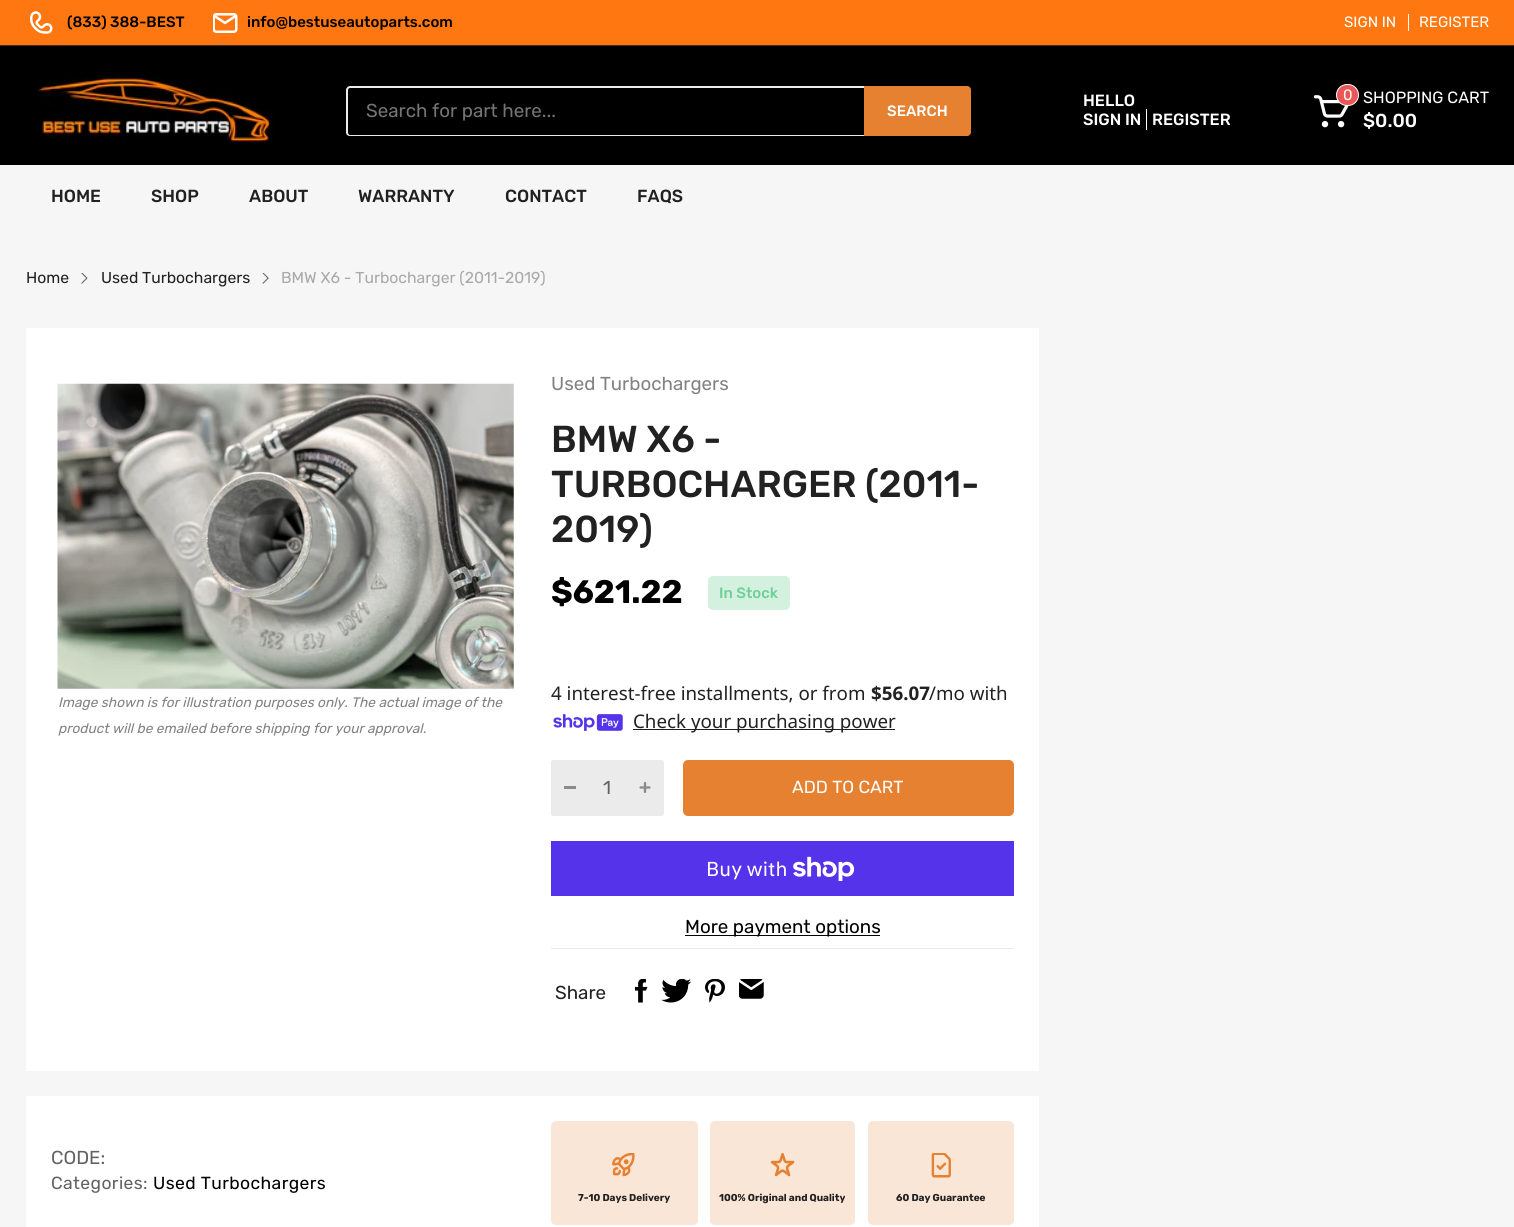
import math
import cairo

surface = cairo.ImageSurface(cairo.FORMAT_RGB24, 1514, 1227)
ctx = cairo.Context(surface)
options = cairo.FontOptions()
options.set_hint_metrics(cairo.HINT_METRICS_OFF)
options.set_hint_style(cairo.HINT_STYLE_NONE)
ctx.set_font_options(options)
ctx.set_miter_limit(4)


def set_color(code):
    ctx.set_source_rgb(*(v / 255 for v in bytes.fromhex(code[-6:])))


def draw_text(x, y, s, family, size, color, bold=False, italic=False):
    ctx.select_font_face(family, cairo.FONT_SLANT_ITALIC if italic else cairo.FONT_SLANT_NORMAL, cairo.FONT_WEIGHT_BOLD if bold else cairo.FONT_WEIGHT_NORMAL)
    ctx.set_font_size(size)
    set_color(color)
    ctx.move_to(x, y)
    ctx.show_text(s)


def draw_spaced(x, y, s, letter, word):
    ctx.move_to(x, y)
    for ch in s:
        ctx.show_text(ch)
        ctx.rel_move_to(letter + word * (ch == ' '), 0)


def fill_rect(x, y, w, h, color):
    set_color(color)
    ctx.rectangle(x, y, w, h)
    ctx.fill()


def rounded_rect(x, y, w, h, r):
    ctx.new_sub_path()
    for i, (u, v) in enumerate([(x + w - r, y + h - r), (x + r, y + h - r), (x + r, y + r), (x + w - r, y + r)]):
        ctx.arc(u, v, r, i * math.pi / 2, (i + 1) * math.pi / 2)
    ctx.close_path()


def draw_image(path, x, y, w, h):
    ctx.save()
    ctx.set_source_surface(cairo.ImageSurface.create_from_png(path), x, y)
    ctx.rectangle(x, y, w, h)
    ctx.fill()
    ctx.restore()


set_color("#f6f6f6")
ctx.paint()
fill_rect(0, 0, 1514, 45, "#ff7710")
fill_rect(0, 45, 1514, 1, "#412e2e")
draw_image("assets/img1.png", 30, 11, 23, 23)
draw_text(67, 27, "(833) 388-BEST", "Rubik Medium", 15, "#000000")
draw_image("assets/img2.png", 213, 13, 25, 20)
draw_text(247, 27, "info@bestuseautoparts.com", "Rubik Medium", 15, "#000000")
draw_text(1344, 27, "SIGN IN", "Rubik", 15, "#ffffff")
draw_text(1419, 27, "REGISTER", "Rubik", 15, "#ffffff")
fill_rect(1408, 14, 1, 17, "#ffffff")
fill_rect(0, 46, 1514, 119, "#000000")
draw_image("assets/img3.png", 37, 76, 239, 70)
set_color("#ebebeb")
ctx.set_fill_rule(cairo.FILL_RULE_EVEN_ODD)
ctx.new_path()
ctx.move_to(350, 86)
ctx.line_to(864, 86)
ctx.line_to(864, 136)
ctx.line_to(350, 136)
ctx.curve_to(348, 136, 346, 135, 346, 132)
ctx.line_to(346, 90)
ctx.curve_to(346, 88, 348, 86, 350, 86)
ctx.close_path()
ctx.move_to(350, 88)
ctx.line_to(864, 88)
ctx.line_to(864, 135)
ctx.line_to(350, 135)
ctx.curve_to(349, 135, 348, 134, 348, 132)
ctx.line_to(348, 90)
ctx.curve_to(348, 89, 349, 88, 350, 88)
ctx.close_path()
ctx.fill()
draw_text(366, 117, "Search for part here...", "Rubik", 18.75, "#757575")
set_color("#e68131")
ctx.new_path()
ctx.move_to(864.5, 86.5)
ctx.line_to(967, 86.5)
ctx.curve_to(969, 86.5, 970.5, 88, 970.5, 90)
ctx.line_to(970.5, 132)
ctx.curve_to(970.5, 134, 969, 135.5, 967, 135.5)
ctx.line_to(864.5, 135.5)
ctx.close_path()
ctx.fill_preserve()
ctx.set_line_width(1)
ctx.stroke()
draw_text(887, 116, "SEARCH", "Rubik Medium", 15, "#ffffff")
draw_text(1083, 106, "HELLO", "Rubik Medium", 16.25, "#ffffff")
fill_rect(1146, 109, 1, 21, "#ffffff")
draw_text(1083, 125, "SIGN IN", "Rubik Medium", 16.25, "#ffffff")
draw_text(1152, 125, "REGISTER", "Rubik Medium", 16.25, "#ffffff")
draw_image("assets/img4.png", 1314, 95, 35, 33)
set_color("#eb5757")
rounded_rect(1336.5, 84.5, 22, 21, 10.5)
ctx.fill_preserve()
set_color("#ffffff")
ctx.stroke()
draw_text(1343, 100, "0", "Rubik", 15, "#ffffff")
draw_text(1363, 103, "SHOPPING CART", "Rubik", 16.25, "#ffffff")
draw_text(1363, 127, "$0.00", "Rubik Medium", 18.75, "#ffffff")
draw_text(51, 202, "HOME", "Rubik Medium", 17.5, "#212121")
draw_text(151, 202, "SHOP", "Rubik Medium", 17.5, "#212121")
draw_text(249, 202, "ABOUT", "Rubik Medium", 17.5, "#212121")
draw_text(358, 202, "WARRANTY", "Rubik Medium", 17.5, "#212121")
draw_text(505, 202, "CONTACT", "Rubik Medium", 17.5, "#212121")
draw_text(637, 202, "FAQS", "Rubik Medium", 17.5, "#212121")
draw_text(26, 283, "Home", "Rubik", 15.75, "#212121")
draw_image("assets/img5.png", 81, 273, 7, 11)
draw_text(101, 283, "Used Turbochargers", "Rubik", 15.75, "#212121")
draw_image("assets/img6.png", 262, 273, 7, 11)
draw_text(281, 283, "BMW X6 - Turbocharger (2011-2019)", "Rubik", 15.75, "#a9a9a9")
fill_rect(26, 328, 1013, 743, "#ffffff")
draw_image("assets/img7.png", 57, 383, 457, 306)
draw_text(58, 707, "Image shown is for illustration purposes only. The actual image of the", "Rubik", 13.75, "#828282", italic=True)
draw_text(58, 733, "product will be emailed before shipping for your approval.", "Rubik", 13.75, "#828282", italic=True)
draw_text(551, 390, "Used Turbochargers", "Rubik", 18.75, "#828282")
draw_text(551, 452, "BMW X6 -", "Rubik Medium", 37.5, "#212121")
draw_text(551, 497, "TURBOCHARGER (2011-", "Rubik Medium", 37.5, "#212121")
draw_text(551, 542, "2019)", "Rubik Medium", 37.5, "#212121")
draw_text(551, 603, "$621.22", "Rubik", 32.5, "#000000", bold=True)
set_color("#d4f1e0")
rounded_rect(708, 576, 82, 34, 5)
ctx.fill()
draw_text(719, 598, "In Stock", "Rubik Medium", 15, "#6fcf97")
draw_text(551, 700, "4 interest-free installments, or from", "Noto Sans", 18.75, "#212121")
draw_text(871, 700, "$56.07", "Noto Sans", 18.75, "#212121", bold=True)
draw_text(929, 700, "/mo with", "Noto Sans", 18.75, "#212121")
draw_image("assets/img8.png", 553, 714, 70, 17)
fill_rect(633, 729, 262, 1, "#1e1e1e")
draw_text(633, 728, "Check your purchasing power", "Noto Sans", 18.75, "#212121")
set_color("#ebebeb")
rounded_rect(551, 760, 113, 56, 2.5)
ctx.fill()
fill_rect(564, 786, 12, 3, "#8b8b8b")
draw_text(603, 794, "1", "Rubik", 18.75, "#626262")
draw_image("assets/img9.png", 639, 782, 12, 11)
set_color("#e68131")
rounded_rect(683.5, 760.5, 330, 55, 4.5)
ctx.fill_preserve()
ctx.stroke()
draw_text(792, 793, "ADD TO CART", "Rubik", 17.5, "#ffffff")
fill_rect(551, 841, 463, 55, "#5433eb")
draw_text(706, 876, "Buy with", "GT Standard", 20, "#ffffff")
draw_image("assets/img10.png", 793, 856, 62, 25)
fill_rect(685, 935, 195, 1, "#000000")
draw_text(685, 933, "More payment options", "Rubik", 18.75, "#000000")
fill_rect(551, 948, 463, 1, "#ebebeb")
draw_text(555, 999, "Share", "Rubik", 18.75, "#212121")
draw_image("assets/img11.png", 635, 979, 13, 24)
draw_image("assets/img12.png", 661, 979, 30, 24)
draw_image("assets/img13.png", 705, 979, 20, 24)
draw_image("assets/img14.png", 739, 979, 25, 20)
fill_rect(26, 1096, 1013, 131, "#ffffff")
draw_text(51, 1164, "CODE:", "Rubik", 18.75, "#626262")
ctx.set_font_size(17.5)
draw_spaced(51, 1189, "Categories:", 0.4, 0)
set_color("#000000")
draw_spaced(153, 1189, "Used Turbochargers", 0.4, 0)
set_color("#fae6d6")
rounded_rect(551, 1121, 147, 104, 5)
ctx.fill()
draw_image("assets/img15.png", 612, 1153, 23, 24)
draw_text(578, 1201, "7-10 Days Delivery", "Rubik", 10, "#212121", bold=True)
set_color("#fae6d6")
rounded_rect(710, 1121, 145, 104, 5)
ctx.fill()
draw_image("assets/img16.png", 770, 1153, 25, 24)
draw_text(719, 1201, "100% Original and Quality", "Rubik", 10, "#212121", bold=True)
set_color("#fae6d6")
rounded_rect(868, 1121, 146, 104, 5)
ctx.fill()
draw_image("assets/img17.png", 931, 1153, 20, 25)
draw_text(896, 1201, "60 Day Guarantee", "Rubik", 10, "#212121", bold=True)
surface.write_to_png("output.png")
